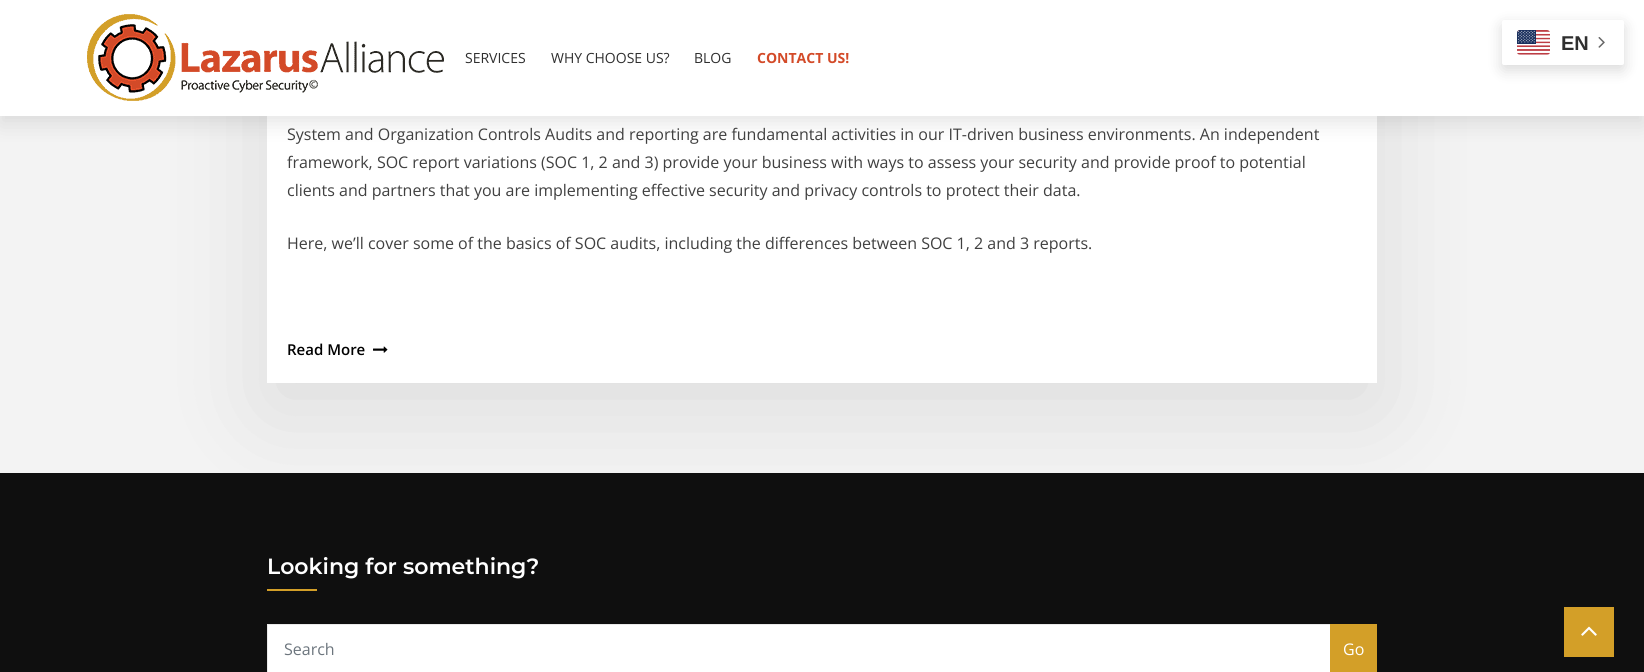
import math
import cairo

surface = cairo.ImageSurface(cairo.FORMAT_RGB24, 1644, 672)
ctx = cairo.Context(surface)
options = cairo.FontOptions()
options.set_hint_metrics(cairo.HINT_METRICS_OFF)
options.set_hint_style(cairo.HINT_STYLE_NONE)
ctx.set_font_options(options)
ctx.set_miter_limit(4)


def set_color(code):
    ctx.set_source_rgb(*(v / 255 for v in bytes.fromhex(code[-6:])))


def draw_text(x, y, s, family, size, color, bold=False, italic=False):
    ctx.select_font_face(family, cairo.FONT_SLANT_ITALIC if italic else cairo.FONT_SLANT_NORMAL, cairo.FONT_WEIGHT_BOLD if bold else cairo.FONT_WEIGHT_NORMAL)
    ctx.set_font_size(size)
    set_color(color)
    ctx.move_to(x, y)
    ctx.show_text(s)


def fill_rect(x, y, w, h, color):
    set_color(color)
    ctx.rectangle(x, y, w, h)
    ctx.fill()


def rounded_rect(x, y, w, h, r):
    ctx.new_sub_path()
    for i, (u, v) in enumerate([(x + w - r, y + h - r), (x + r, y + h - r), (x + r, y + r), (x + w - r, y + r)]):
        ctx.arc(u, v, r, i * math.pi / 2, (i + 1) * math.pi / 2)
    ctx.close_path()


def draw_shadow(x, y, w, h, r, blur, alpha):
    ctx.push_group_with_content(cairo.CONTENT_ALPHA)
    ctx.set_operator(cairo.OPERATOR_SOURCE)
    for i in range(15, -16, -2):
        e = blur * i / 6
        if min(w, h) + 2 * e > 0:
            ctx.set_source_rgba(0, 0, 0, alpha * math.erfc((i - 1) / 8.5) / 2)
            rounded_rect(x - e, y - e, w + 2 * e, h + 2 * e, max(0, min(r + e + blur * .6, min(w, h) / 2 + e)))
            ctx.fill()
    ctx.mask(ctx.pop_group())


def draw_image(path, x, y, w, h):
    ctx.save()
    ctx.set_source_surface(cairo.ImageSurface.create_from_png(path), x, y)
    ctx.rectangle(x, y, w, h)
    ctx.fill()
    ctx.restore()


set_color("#f3f3f3")
ctx.paint()
set_color("#000000")
draw_shadow(267, -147, 1110, 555, 0, 49, 0.1)
fill_rect(267, 116, 1110, 267, "#ffffff")
set_color("#000000")
draw_shadow(0, 8, 1644, 116, 0, 10, 0.1)
fill_rect(0, 0, 1644, 116, "#ffffff")
set_color("#000000")
draw_shadow(1502, 25, 122, 45, 2, 7.5, 0.15)
set_color("#ffffff")
rounded_rect(1502, 20, 122, 45, 2)
ctx.fill()
draw_image("assets/img1.png", 1517, 30, 33, 25)
draw_text(1561, 50, "EN", "Liberation Sans", 20, "#2f2f2f", bold=True)
draw_image("assets/img2.png", 1598, 37, 7, 11)
draw_image("assets/img3.png", 87, 14, 357, 87)
draw_text(465, 63, "SERVICES", "Open Sans", 14, "#2f2f2f")
draw_text(551, 63, "WHY CHOOSE US?", "Open Sans", 14, "#2f2f2f")
draw_text(694, 63, "BLOG", "Open Sans", 14, "#2f2f2f")
draw_text(757, 63, "CONTACT US!", "Open Sans", 14, "#d34a28", bold=True)
draw_text(287, 140, "System and Organization Controls Audits and reporting are fundamental activities in our IT-driven business environments. An independent", "Open Sans", 16, "#404040")
draw_text(287, 168, "framework, SOC report variations (SOC 1, 2 and 3) provide your business with ways to assess your security and provide proof to potential", "Open Sans", 16, "#404040")
draw_text(287, 196, "clients and partners that you are implementing effective security and privacy controls to protect their data.", "Open Sans", 16, "#404040")
draw_text(287, 249, "Here, we’ll cover some of the basics of SOC audits, including the differences between SOC 1, 2 and 3 reports.", "Open Sans", 16, "#404040")
draw_text(287, 355, "Read More", "Open Sans SemiBold", 15, "#000000")
draw_image("assets/img4.png", 373, 346, 15, 7)
fill_rect(0, 473, 1644, 199, "#0f0f0f")
draw_text(267, 574, "Looking for something?", "Montserrat SemiBold", 22, "#ffffff")
fill_rect(267, 589, 50, 2, "#d39f28")
set_color("#ffffff")
ctx.rectangle(267.5, 624.5, 1063, 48)
ctx.fill_preserve()
set_color("#e9e9e9")
ctx.set_line_width(1)
ctx.stroke()
draw_text(284, 655, "Search", "Open Sans", 16, "#6c757d")
fill_rect(1330, 624, 47, 48, "#d39f28")
draw_text(1343, 655, "Go", "Open Sans", 16, "#ffffff")
fill_rect(1564, 607, 50, 50, "#d39f28")
draw_image("assets/img5.png", 1581, 626, 16, 10)
surface.write_to_png("output.png")
